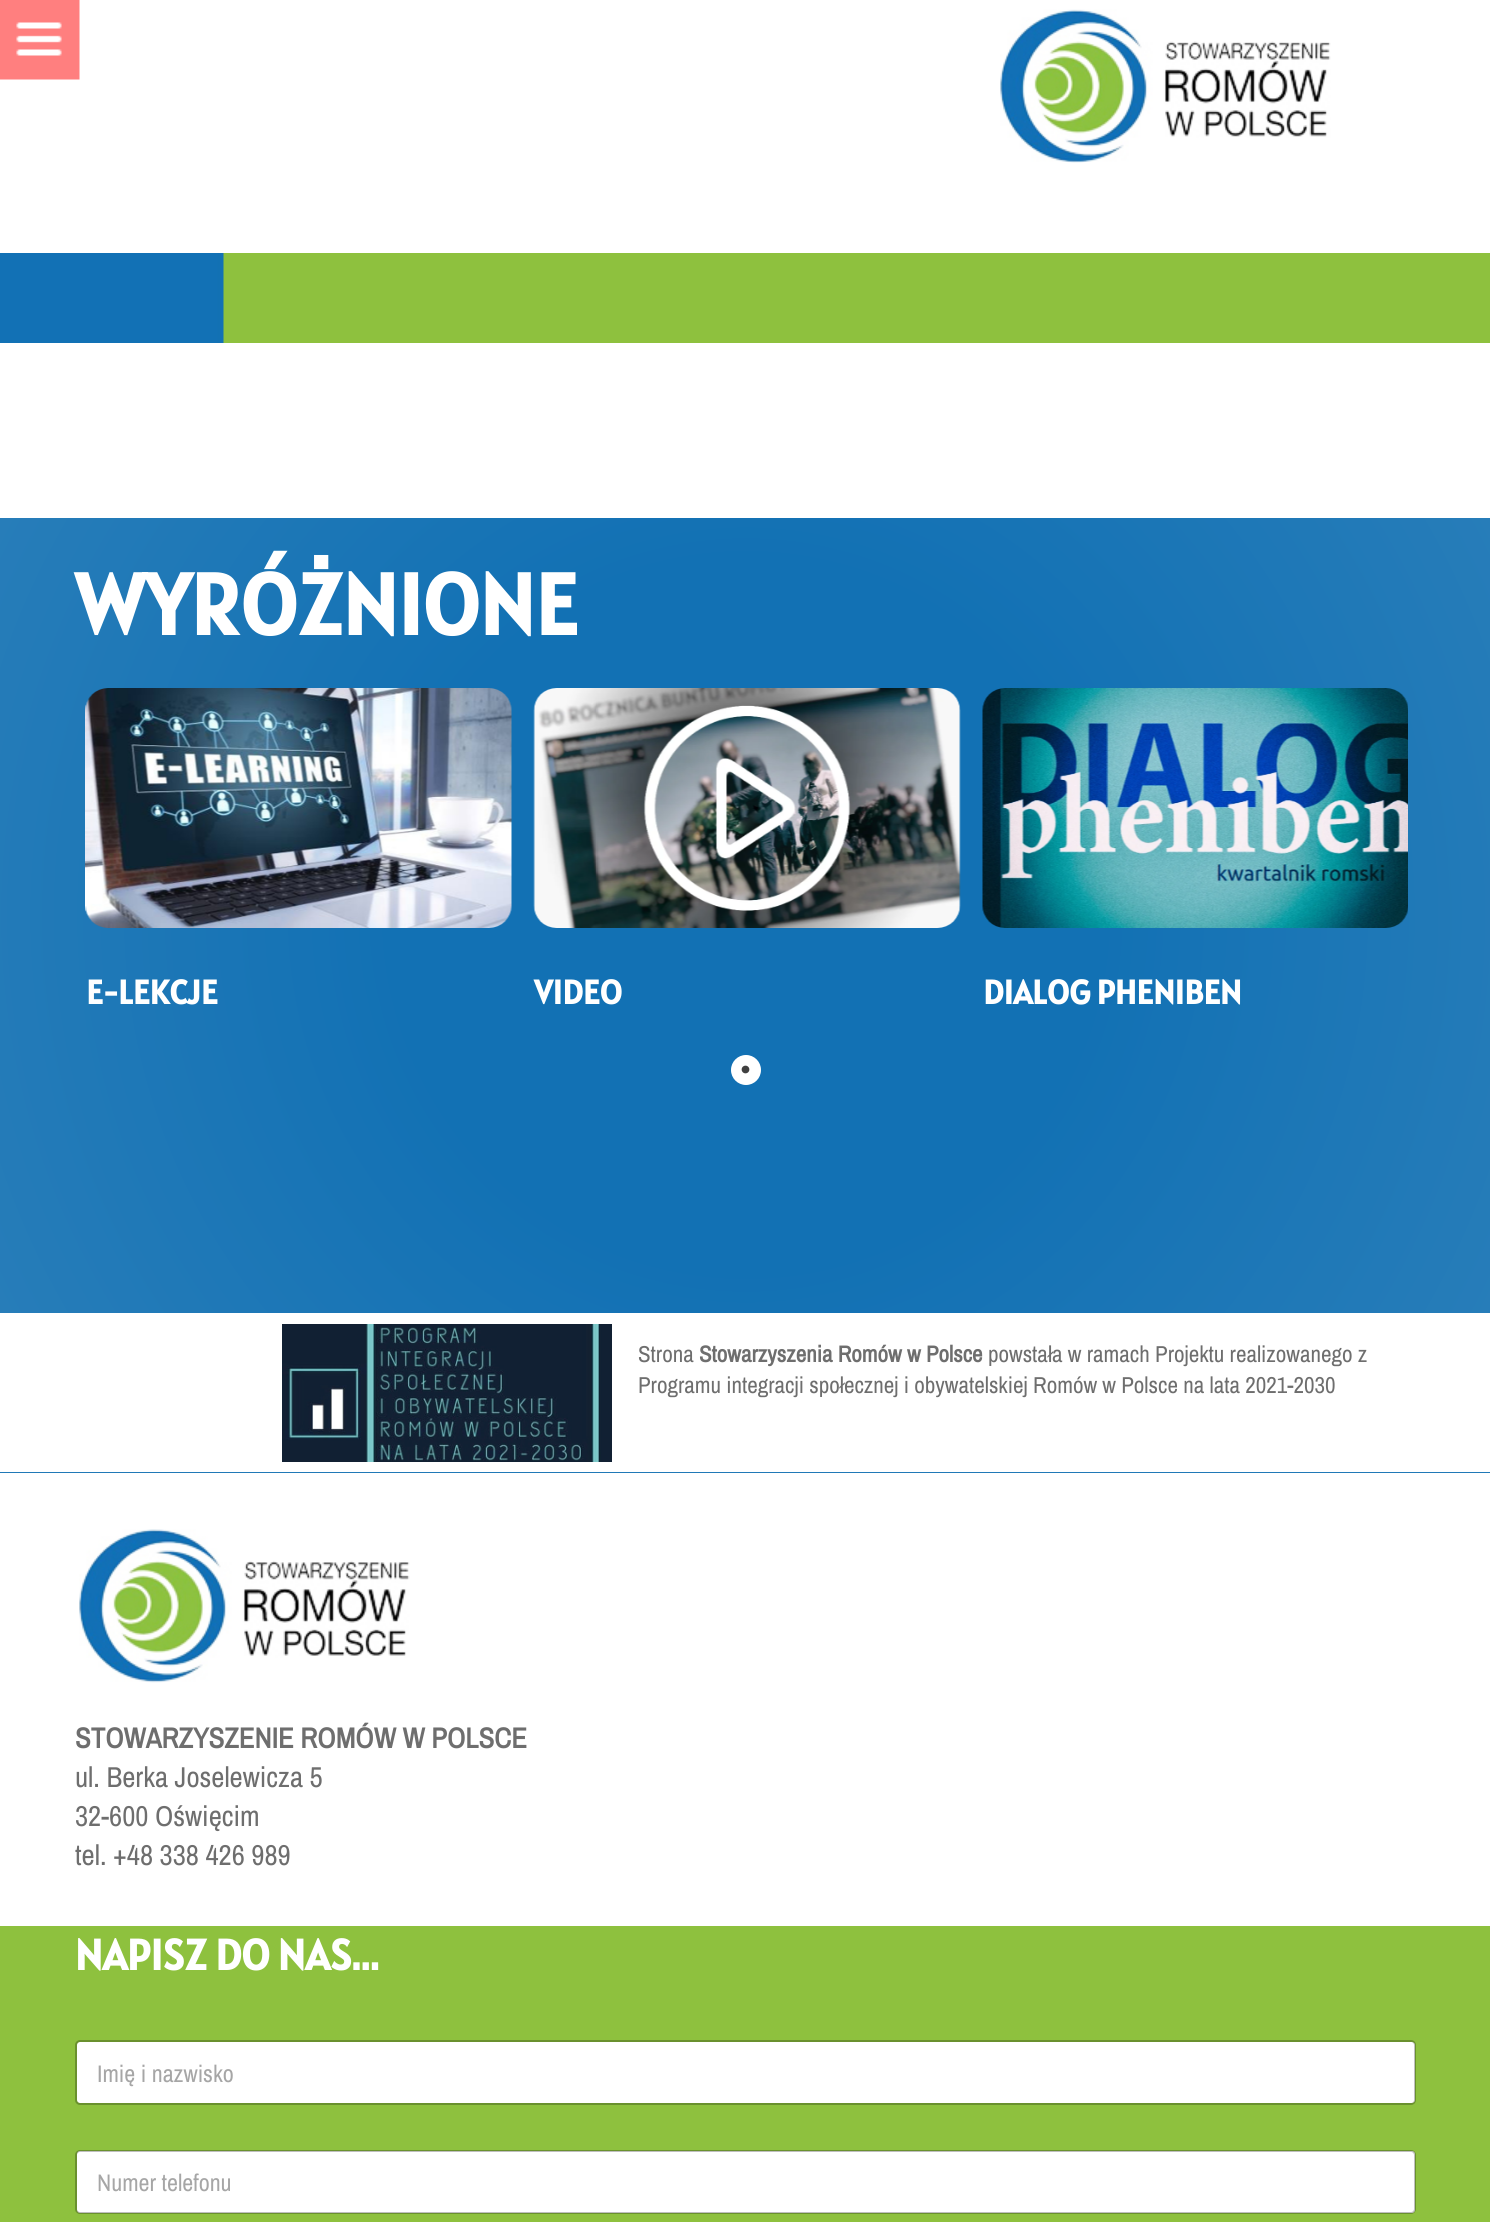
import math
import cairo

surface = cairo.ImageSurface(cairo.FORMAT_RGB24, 1490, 2222)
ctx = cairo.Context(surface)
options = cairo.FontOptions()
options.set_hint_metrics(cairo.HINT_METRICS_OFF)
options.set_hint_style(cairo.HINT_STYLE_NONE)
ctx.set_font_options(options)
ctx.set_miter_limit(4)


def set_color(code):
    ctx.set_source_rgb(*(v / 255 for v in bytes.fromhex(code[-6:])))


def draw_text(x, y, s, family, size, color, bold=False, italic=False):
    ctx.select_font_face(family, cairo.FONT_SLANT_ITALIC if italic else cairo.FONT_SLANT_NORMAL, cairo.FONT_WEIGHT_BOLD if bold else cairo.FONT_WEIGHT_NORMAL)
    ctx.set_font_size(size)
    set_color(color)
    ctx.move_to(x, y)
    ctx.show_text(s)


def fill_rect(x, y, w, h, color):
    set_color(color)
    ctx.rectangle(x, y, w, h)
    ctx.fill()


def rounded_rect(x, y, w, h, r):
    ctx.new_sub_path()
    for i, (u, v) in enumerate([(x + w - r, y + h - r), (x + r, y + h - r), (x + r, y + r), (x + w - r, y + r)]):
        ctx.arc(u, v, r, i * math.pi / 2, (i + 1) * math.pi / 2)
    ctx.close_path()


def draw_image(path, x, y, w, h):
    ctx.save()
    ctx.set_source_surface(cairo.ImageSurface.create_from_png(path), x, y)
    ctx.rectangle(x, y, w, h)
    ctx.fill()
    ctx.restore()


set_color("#ffffff")
ctx.paint()
draw_image("assets/img1.png", 0, 0, 80, 80)
draw_image("assets/img2.png", 1000, 9, 331, 154)
draw_image("assets/img3.png", 0, 253, 1490, 90)
gradient = cairo.RadialGradient(746, 915, 0, 746, 915, 845)
gradient.add_color_stop_rgba(0.42, 0.071, 0.443, 0.706, 1)
gradient.add_color_stop_rgba(1, 0.153, 0.49, 0.725, 1)
ctx.set_source(gradient)
ctx.rectangle(0, 518, 1490, 795)
ctx.fill()
draw_text(75, 635, "WYRÓŻNIONE", "Alatsi", 86.5, "#ffffff", bold=True)
draw_image("assets/img4.png", 85, 688, 427, 240)
draw_text(86, 1004, "E-LEKCJE", "Alatsi", 33.75, "#ffffff", bold=True)
draw_image("assets/img5.png", 533, 688, 428, 240)
draw_text(534, 1004, "VIDEO", "Alatsi", 33.75, "#ffffff", bold=True)
draw_image("assets/img6.png", 982, 688, 426, 240)
draw_text(983, 1004, "DIALOG PHENIBEN", "Alatsi", 33.75, "#ffffff", bold=True)
ctx.new_path()
ctx.arc(746, 1070, 15, 0, 2 * math.pi)
ctx.fill()
draw_image("assets/img7.png", 741, 1065, 9, 9)
fill_rect(0, 1472, 1490, 1, "#2079b7")
draw_image("assets/img8.png", 282, 1324, 330, 138)
draw_text(638, 1362, "Strona", "Archivo Narrow", 23.05, "#6e6e6e")
draw_text(699, 1362, "Stowarzyszenia Romów w Polsce", "Archivo Narrow", 23.05, "#6e6e6e", bold=True)
draw_text(988, 1362, "powstała w ramach Projektu realizowanego z", "Archivo Narrow", 23.05, "#6e6e6e")
draw_text(638, 1393, "Programu integracji społecznej i obywatelskiej Romów w Polsce na lata 2021-2030", "Archivo Narrow", 23.05, "#6e6e6e")
draw_image("assets/img9.png", 79, 1529, 331, 154)
draw_text(75, 1748, "STOWARZYSZENIE ROMÓW W POLSCE", "Archivo Narrow", 28.75, "#6e6e6e", bold=True)
draw_text(75, 1787, "ul. Berka Joselewicza 5", "Archivo Narrow", 28.75, "#6e6e6e")
draw_text(75, 1826, "32-600 Oświęcim", "Archivo Narrow", 28.75, "#6e6e6e")
draw_text(75, 1865, "tel. +48 338 426 989", "Archivo Narrow", 28.75, "#6e6e6e")
fill_rect(0, 1926, 1490, 296, "#8ec13e")
draw_text(75, 1970, "NAPISZ DO NAS...", "Alatsi", 43.25, "#ffffff", bold=True)
rounded_rect(77, 2042, 1338, 61, 3)
ctx.fill()
rounded_rect(76, 2041, 1339, 63, 4)
ctx.set_source_rgba(0, 0, 0, 0.25)
ctx.stroke()
draw_text(97, 2082, "Imię i nazwisko", "Archivo Narrow", 24, "#a6a6a6")
set_color("#ffffff")
rounded_rect(77, 2151, 1338, 62, 3)
ctx.fill()
rounded_rect(76, 2151, 1339, 62, 4)
ctx.set_source_rgba(0, 0, 0, 0.25)
ctx.stroke()
draw_text(97, 2191, "Numer telefonu", "Archivo Narrow", 24, "#a6a6a6")
surface.write_to_png("output.png")
